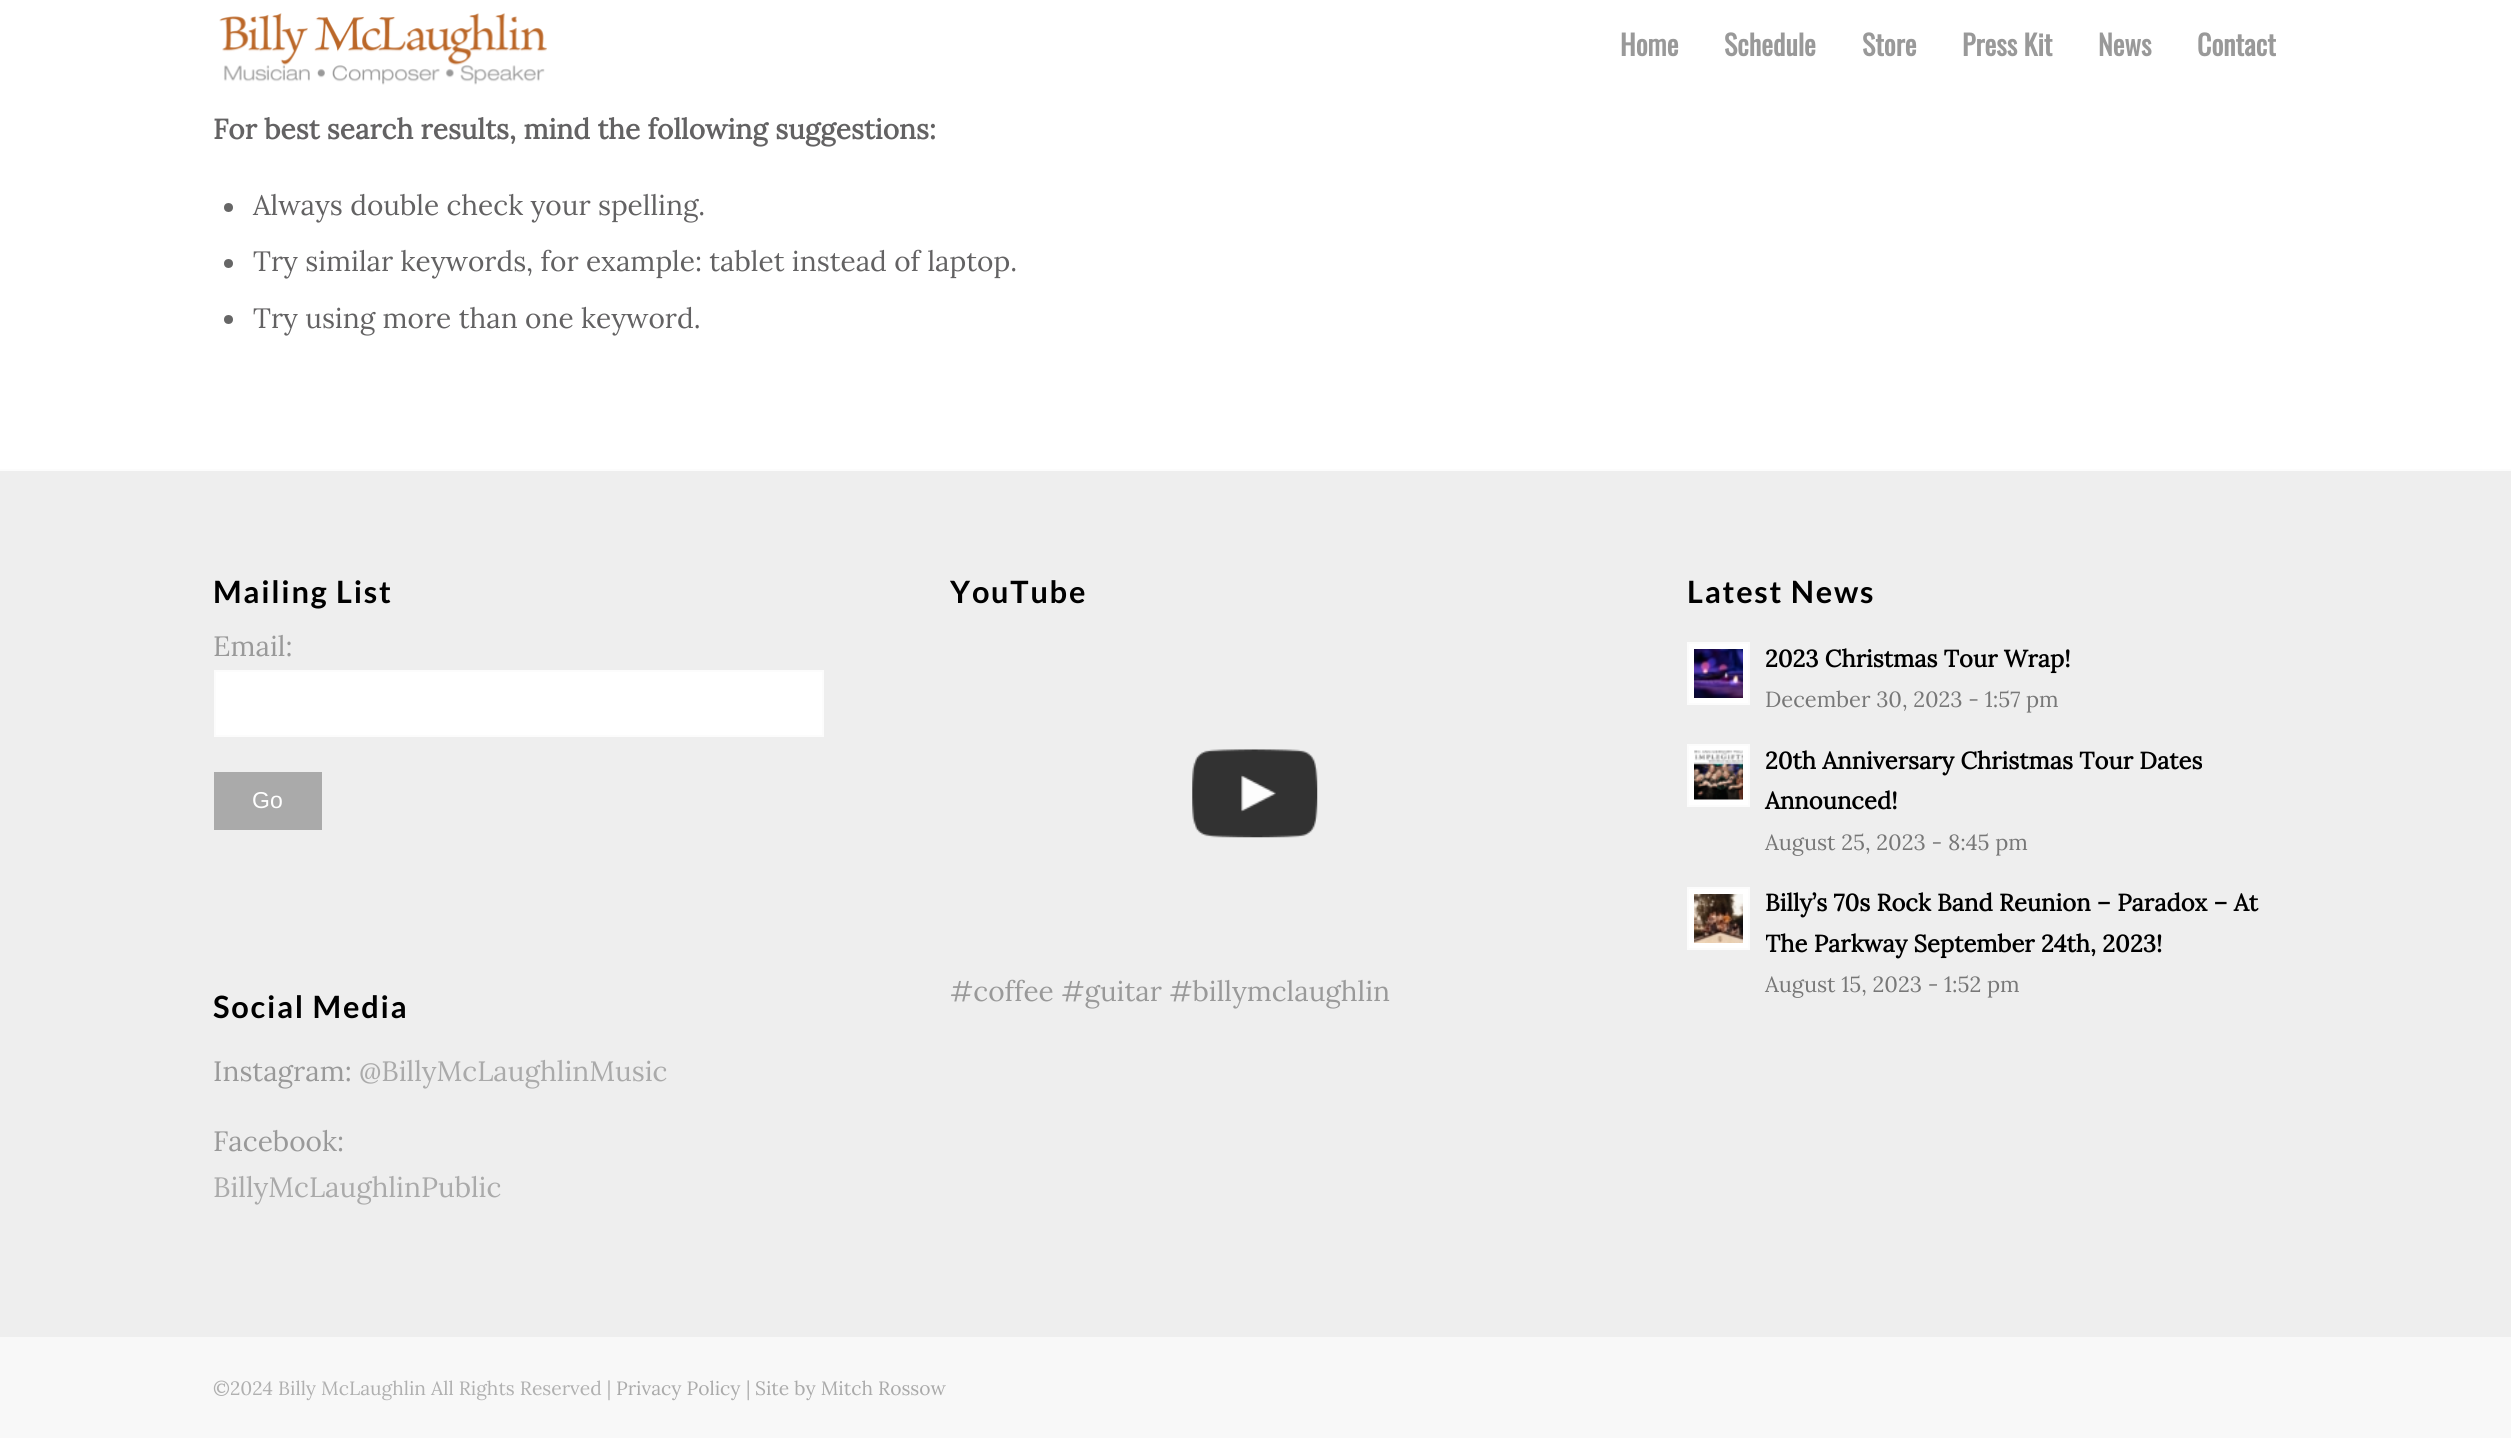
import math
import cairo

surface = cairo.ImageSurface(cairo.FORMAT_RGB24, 2511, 1438)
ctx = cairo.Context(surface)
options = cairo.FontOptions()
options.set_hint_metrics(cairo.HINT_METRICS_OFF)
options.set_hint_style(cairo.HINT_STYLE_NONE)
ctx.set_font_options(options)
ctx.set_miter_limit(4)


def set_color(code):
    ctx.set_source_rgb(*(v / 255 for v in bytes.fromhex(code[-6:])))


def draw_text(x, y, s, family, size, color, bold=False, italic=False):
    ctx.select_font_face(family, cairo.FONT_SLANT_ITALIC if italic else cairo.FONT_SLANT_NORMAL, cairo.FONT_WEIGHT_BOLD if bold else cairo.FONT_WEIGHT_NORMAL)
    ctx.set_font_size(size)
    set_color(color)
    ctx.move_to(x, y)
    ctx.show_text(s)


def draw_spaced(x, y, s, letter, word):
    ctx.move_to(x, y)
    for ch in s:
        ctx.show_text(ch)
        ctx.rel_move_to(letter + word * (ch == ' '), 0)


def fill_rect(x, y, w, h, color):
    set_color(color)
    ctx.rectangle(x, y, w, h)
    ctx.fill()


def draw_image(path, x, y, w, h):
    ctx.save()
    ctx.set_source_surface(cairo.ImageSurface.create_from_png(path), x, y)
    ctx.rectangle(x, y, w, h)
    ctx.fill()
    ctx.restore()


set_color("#ffffff")
ctx.paint()
draw_image("assets/img1.png", 219, 13, 328, 72)
draw_text(1620, 56, "Home", "Oswald", 28, "#999999", bold=True)
draw_text(1724, 56, "Schedule", "Oswald", 28, "#999999", bold=True)
draw_text(1862, 56, "Store", "Oswald", 28, "#999999", bold=True)
draw_text(1962, 56, "Press Kit", "Oswald", 28, "#999999", bold=True)
draw_text(2098, 56, "News", "Oswald", 28, "#999999", bold=True)
draw_text(2197, 56, "Contact", "Oswald", 28, "#999999", bold=True)
draw_text(213, 139, "For best search results, mind the following suggestions:", "Lora", 28, "#636263", bold=True)
set_color("#666666")
ctx.new_path()
ctx.arc(228.5, 207.5, 4.5, 0, 2 * math.pi)
ctx.fill()
draw_text(253, 215, "Always double check your spelling.", "Lora", 28, "#636263")
set_color("#666666")
ctx.new_path()
ctx.arc(228.5, 263.5, 4.5, 0, 2 * math.pi)
ctx.fill()
draw_text(253, 271, "Try similar keywords, for example: tablet instead of laptop.", "Lora", 28, "#636263")
set_color("#666666")
ctx.new_path()
ctx.arc(228.5, 319.5, 4.5, 0, 2 * math.pi)
ctx.fill()
draw_text(253, 328, "Try using more than one keyword.", "Lora", 28, "#636263")
fill_rect(0, 471, 2511, 866, "#eeeeee")
fill_rect(0, 469, 2511, 2, "#fcfcfc")
ctx.select_font_face("Lato", cairo.FONT_SLANT_NORMAL, cairo.FONT_WEIGHT_BOLD)
ctx.set_font_size(30.75)
set_color("#000000")
draw_spaced(213, 603, "Mailing List", 1.75, 0)
draw_text(213, 656, "Email:", "Lora", 28, "#999999")
set_color("#ffffff")
ctx.rectangle(215, 671, 608, 65)
ctx.fill_preserve()
set_color("#fcfcfc")
ctx.stroke()
fill_rect(214, 772, 108, 58, "#aaaaaa")
draw_text(252, 808, "Go", "Liberation Sans", 23, "#ffffff")
ctx.select_font_face("Lato", cairo.FONT_SLANT_NORMAL, cairo.FONT_WEIGHT_BOLD)
ctx.set_font_size(30.75)
set_color("#000000")
draw_spaced(213, 1018, "Social Media", 1.75, 0)
draw_text(213, 1081, "Instagram:", "Lora", 28, "#999999")
draw_text(359, 1081, "@BillyMcLaughlinMusic", "Lora", 28, "#aaaaaa")
draw_text(213, 1151, "Facebook:", "Lora", 28, "#999999")
draw_text(213, 1197, "BillyMcLaughlinPublic", "Lora", 28, "#aaaaaa")
ctx.select_font_face("Lato", cairo.FONT_SLANT_NORMAL, cairo.FONT_WEIGHT_BOLD)
ctx.set_font_size(30.75)
set_color("#000000")
draw_spaced(950, 603, "YouTube", 1.75, 0)
draw_image("assets/img2.png", 1192, 749, 126, 89)
draw_text(950, 1001, "#coffee #guitar #billymclaughlin", "Lora", 28, "#999999")
ctx.select_font_face("Lato", cairo.FONT_SLANT_NORMAL, cairo.FONT_WEIGHT_BOLD)
ctx.set_font_size(30.75)
set_color("#000000")
draw_spaced(1687, 603, "Latest News", 1.75, 0)
set_color("#ffffff")
ctx.rectangle(1688, 643, 61, 61)
ctx.fill_preserve()
set_color("#fcfcfc")
ctx.stroke()
draw_image("assets/img3.png", 1694, 649, 49, 49)
draw_text(1765, 667, "2023 Christmas Tour Wrap!", "Lora", 23.8, "#000000", bold=True)
draw_text(1765, 707, "December 30, 2023 - 1:57 pm", "Lora", 21.9, "#777777")
set_color("#ffffff")
ctx.rectangle(1688, 745, 61, 61)
ctx.fill_preserve()
set_color("#fcfcfc")
ctx.stroke()
draw_image("assets/img4.png", 1694, 750, 49, 50)
draw_text(1765, 769, "20th Anniversary Christmas Tour Dates", "Lora", 23.8, "#000000", bold=True)
draw_text(1765, 809, "Announced!", "Lora", 23.8, "#000000", bold=True)
draw_text(1765, 850, "August 25, 2023 - 8:45 pm", "Lora", 21.9, "#777777")
set_color("#ffffff")
ctx.rectangle(1688, 888, 61, 61)
ctx.fill_preserve()
set_color("#fcfcfc")
ctx.stroke()
draw_image("assets/img5.png", 1694, 894, 49, 49)
draw_text(1765, 911, "Billy’s 70s Rock Band Reunion – Paradox – At", "Lora", 23.8, "#000000", bold=True)
ctx.save()
ctx.rectangle(1766, 884, 532, 121)
ctx.clip()
draw_text(1765, 952, "The Parkway September 24th, 2023!", "Lora", 23.8, "#000000", bold=True)
ctx.restore()
draw_text(1765, 992, "August 15, 2023 - 1:52 pm", "Lora", 21.9, "#777777")
fill_rect(0, 1337, 2511, 101, "#f8f8f8")
draw_text(213, 1395, "©2024 Billy McLaughlin All Rights Reserved |", "Lora", 19.25, "#b0b0b0")
draw_text(616, 1395, "Privacy Policy", "Lora", 19.25, "#aaaaaa")
draw_text(746, 1395, "|", "Lora", 19.25, "#b0b0b0")
draw_text(755, 1395, "Site by Mitch Rossow", "Lora", 19.25, "#aaaaaa")
surface.write_to_png("output.png")
